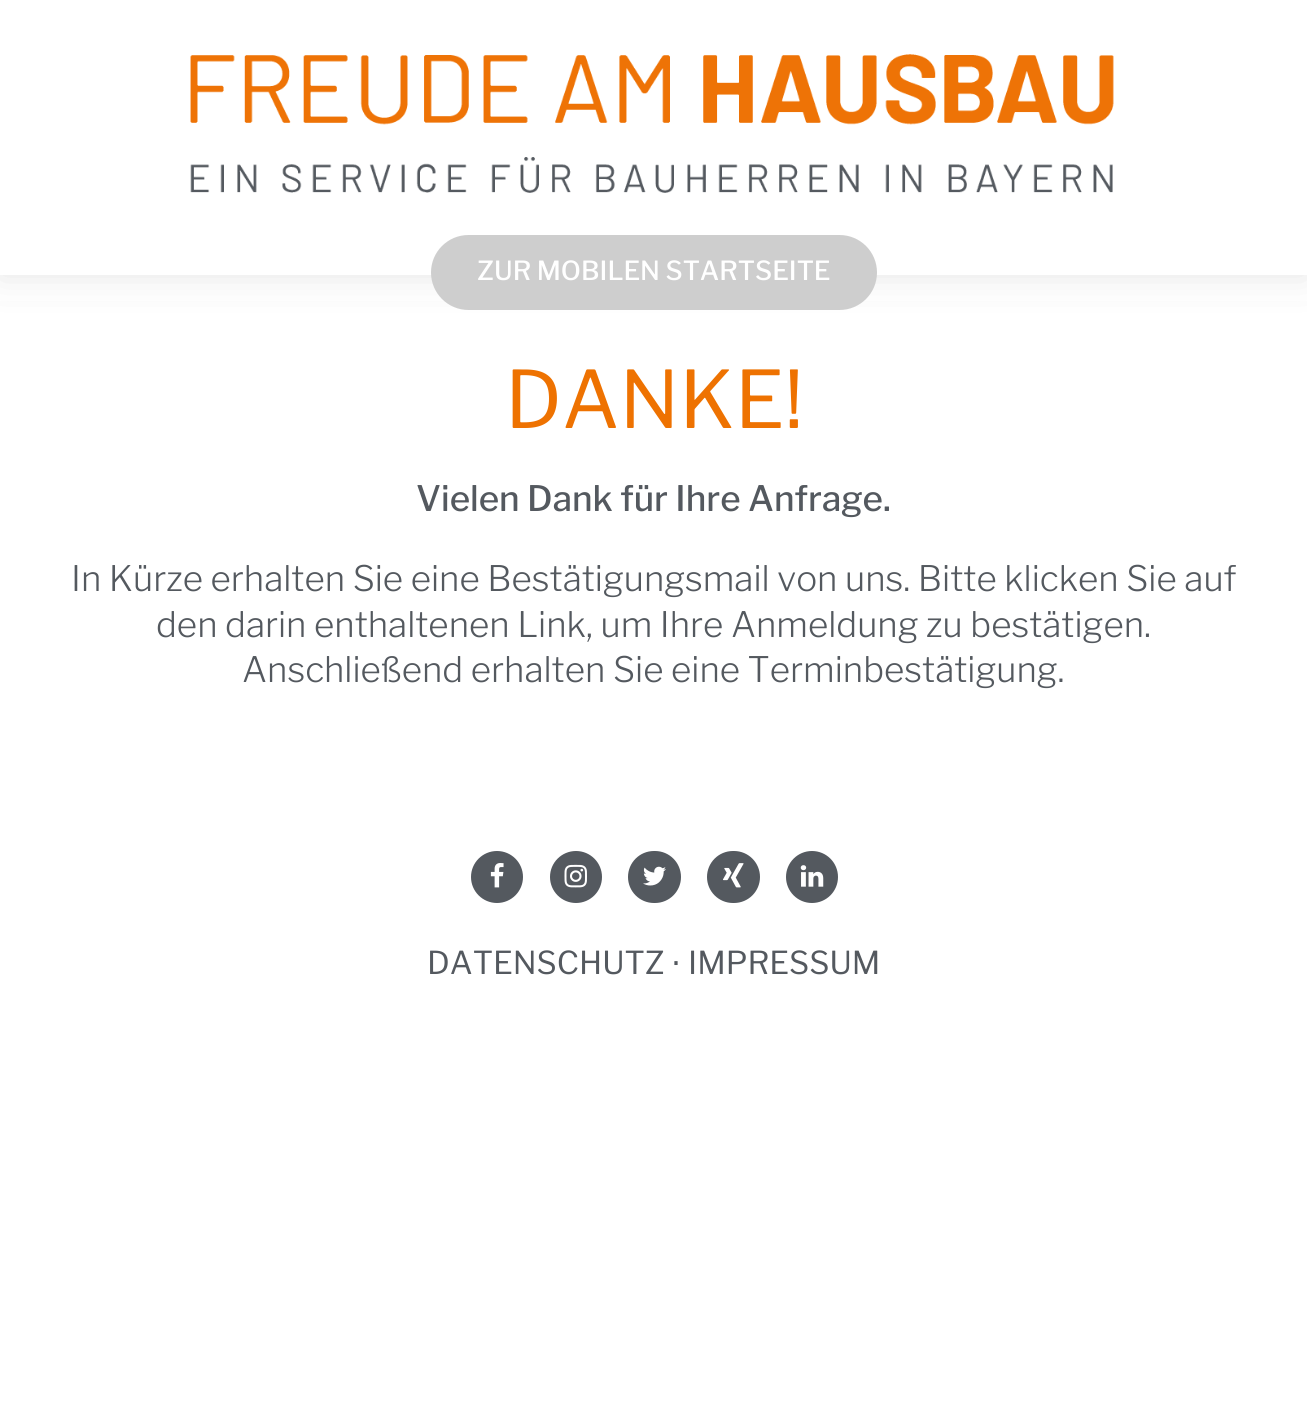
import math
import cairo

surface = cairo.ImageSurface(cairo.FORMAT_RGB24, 1307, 1413)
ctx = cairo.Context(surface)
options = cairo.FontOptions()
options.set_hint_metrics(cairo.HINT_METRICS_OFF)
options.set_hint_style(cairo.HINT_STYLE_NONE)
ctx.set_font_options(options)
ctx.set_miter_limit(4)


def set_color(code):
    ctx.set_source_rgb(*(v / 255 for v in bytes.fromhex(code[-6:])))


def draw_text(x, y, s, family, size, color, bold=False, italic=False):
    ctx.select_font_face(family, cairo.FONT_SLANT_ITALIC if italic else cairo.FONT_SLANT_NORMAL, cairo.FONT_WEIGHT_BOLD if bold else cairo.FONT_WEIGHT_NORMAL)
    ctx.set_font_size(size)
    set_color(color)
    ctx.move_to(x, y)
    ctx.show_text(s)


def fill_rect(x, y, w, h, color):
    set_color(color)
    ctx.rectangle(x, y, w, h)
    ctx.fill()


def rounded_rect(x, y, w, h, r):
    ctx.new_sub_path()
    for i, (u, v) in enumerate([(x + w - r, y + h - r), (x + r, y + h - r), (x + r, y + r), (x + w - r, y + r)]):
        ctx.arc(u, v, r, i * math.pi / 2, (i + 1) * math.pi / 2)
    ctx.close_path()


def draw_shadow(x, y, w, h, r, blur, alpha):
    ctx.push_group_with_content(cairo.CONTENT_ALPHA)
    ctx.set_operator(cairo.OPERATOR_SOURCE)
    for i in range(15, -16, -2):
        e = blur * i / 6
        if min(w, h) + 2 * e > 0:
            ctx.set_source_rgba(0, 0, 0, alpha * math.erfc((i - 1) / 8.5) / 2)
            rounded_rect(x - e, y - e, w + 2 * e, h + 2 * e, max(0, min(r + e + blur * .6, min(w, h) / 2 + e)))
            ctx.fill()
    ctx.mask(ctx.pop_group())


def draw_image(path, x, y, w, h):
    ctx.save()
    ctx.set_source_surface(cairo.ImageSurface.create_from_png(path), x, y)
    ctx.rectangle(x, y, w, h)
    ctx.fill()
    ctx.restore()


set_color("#ffffff")
ctx.paint()
set_color("#000000")
draw_shadow(0, 0, 1307, 275, 0, 17.5, 0.26)
fill_rect(0, 0, 1307, 275, "#ffffff")
draw_image("assets/img1.png", 190, 54, 924, 139)
ctx.set_source_rgba(1, 1, 1, 0.6)
ctx.rectangle(0, 275, 1307, 26)
ctx.fill()
set_color("#cecece")
rounded_rect(433, 237, 442, 71, 35.5)
ctx.fill_preserve()
ctx.set_line_width(4)
ctx.stroke()
draw_text(477, 280, "ZUR MOBILEN STARTSEITE", "Libre Franklin Medium", 26.25, "#ffffff")
draw_text(505, 428, "DANKE!", "Libre Franklin", 79, "#ee7201")
draw_text(416, 511, "Vielen Dank für Ihre Anfrage.", "Libre Franklin Medium", 35, "#54595f")
draw_text(71, 591, "In Kürze erhalten Sie eine Bestätigungsmail von uns. Bitte klicken Sie auf", "Libre Franklin Light", 35, "#54595f")
draw_text(156, 637, "den darin enthaltenen Link, um Ihre Anmeldung zu bestätigen.", "Libre Franklin Light", 35, "#54595f")
draw_text(242, 682, "Anschließend erhalten Sie eine Terminbestätigung.", "Libre Franklin Light", 35, "#54595f")
ctx.new_path()
ctx.arc(497, 877, 26, 0, 2 * math.pi)
ctx.fill()
draw_image("assets/img2.png", 490, 863, 14, 25)
ctx.arc(576, 877, 26, 0, 2 * math.pi)
ctx.fill()
draw_image("assets/img3.png", 564, 864, 23, 24)
rounded_rect(628, 851, 53, 52, 26)
ctx.fill()
draw_image("assets/img4.png", 643, 866, 23, 20)
rounded_rect(707, 851, 53, 52, 26)
ctx.fill()
draw_image("assets/img5.png", 723, 863, 21, 25)
ctx.arc(812, 877, 26, 0, 2 * math.pi)
ctx.fill()
draw_image("assets/img6.png", 800, 865, 24, 22)
draw_text(427, 974, "DATENSCHUTZ", "Libre Franklin", 31.5, "#54595f")
draw_text(671, 974, "⋅", "DejaVu Sans", 31.5, "#54595f")
draw_text(688, 974, "IMPRESSUM", "Libre Franklin", 31.5, "#54595f")
surface.write_to_png("output.png")
